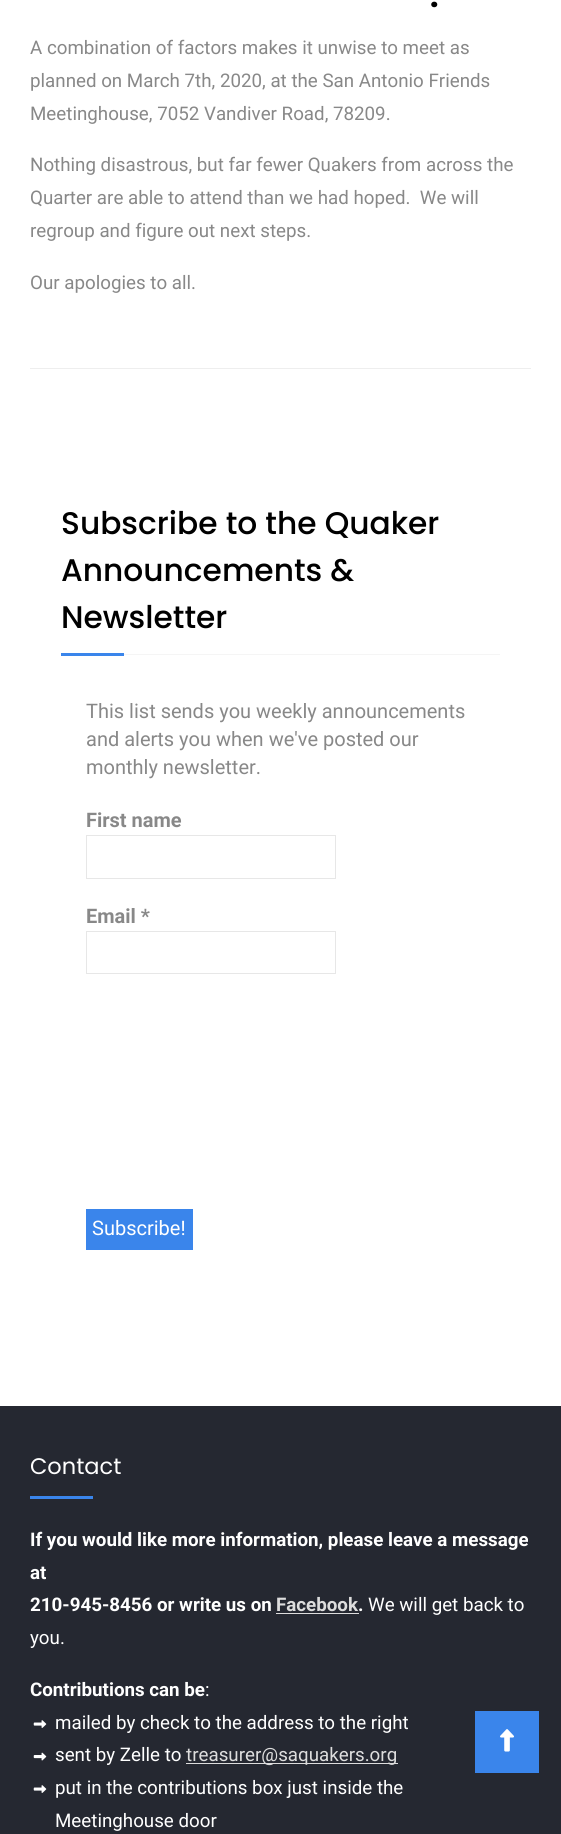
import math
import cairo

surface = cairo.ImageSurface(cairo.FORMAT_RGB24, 561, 1834)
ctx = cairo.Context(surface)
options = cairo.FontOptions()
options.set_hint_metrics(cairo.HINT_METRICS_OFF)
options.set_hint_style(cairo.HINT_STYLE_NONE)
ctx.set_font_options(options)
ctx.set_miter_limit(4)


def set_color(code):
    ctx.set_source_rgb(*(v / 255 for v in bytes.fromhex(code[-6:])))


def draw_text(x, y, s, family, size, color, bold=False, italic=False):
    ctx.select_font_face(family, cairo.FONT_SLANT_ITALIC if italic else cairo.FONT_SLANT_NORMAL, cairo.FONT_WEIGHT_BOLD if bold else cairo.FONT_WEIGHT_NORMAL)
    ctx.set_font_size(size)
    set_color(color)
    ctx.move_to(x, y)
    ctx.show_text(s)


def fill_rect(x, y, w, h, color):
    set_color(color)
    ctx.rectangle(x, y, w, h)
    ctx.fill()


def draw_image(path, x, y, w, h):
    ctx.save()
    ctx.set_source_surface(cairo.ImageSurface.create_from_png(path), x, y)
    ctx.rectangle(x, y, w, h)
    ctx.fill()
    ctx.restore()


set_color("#ffffff")
ctx.paint()
fill_rect(30, 368, 501, 1, "#eeeeee")
draw_text(430, 7, ".", "Poppins", 30, "#000000", bold=True)
draw_text(30, 54, "A combination of factors makes it unwise to meet as", "Roboto", 18.75, "#888888")
draw_text(30, 87, "planned on March 7th, 2020, at the San Antonio Friends", "Roboto", 18.75, "#888888")
draw_text(30, 120, "Meetinghouse, 7052 Vandiver Road, 78209.", "Roboto", 18.75, "#888888")
draw_text(30, 171, "Nothing disastrous, but far fewer Quakers from across the", "Roboto", 18.75, "#888888")
draw_text(30, 204, "Quarter are able to attend than we had hoped.  We will", "Roboto", 18.75, "#888888")
draw_text(30, 237, "regroup and figure out next steps.", "Roboto", 18.75, "#888888")
draw_text(30, 289, "Our apologies to all.", "Roboto", 18.75, "#888888")
fill_rect(124, 654, 376, 1, "#f5f5f5")
draw_text(61, 534, "Subscribe to the Quaker", "Poppins Medium", 31.25, "#000000")
draw_text(61, 581, "Announcements &", "Poppins Medium", 31.25, "#000000")
draw_text(61, 628, "Newsletter", "Poppins Medium", 31.25, "#000000")
fill_rect(61, 653, 63, 3, "#3a85eb")
draw_text(86, 718, "This list sends you weekly announcements", "Roboto", 20, "#888888")
draw_text(86, 746, "and alerts you when we've posted our", "Roboto", 20, "#888888")
draw_text(86, 774, "monthly newsletter.", "Roboto", 20, "#888888")
draw_text(86, 827, "First name", "Roboto", 20, "#888888", bold=True)
ctx.rectangle(86.5, 835.5, 249, 43)
set_color("#e7e7e7")
ctx.set_line_width(1)
ctx.stroke()
draw_text(86, 923, "Email *", "Roboto", 20, "#888888", bold=True)
ctx.rectangle(86.5, 931.5, 249, 42)
set_color("#e7e7e7")
ctx.stroke()
fill_rect(86, 1209, 107, 41, "#3a85eb")
draw_text(92, 1235, "Subscribe!", "Roboto", 20, "#ffffff")
fill_rect(0, 1406, 561, 428, "#252831")
draw_text(30, 1474, "Contact", "Poppins", 22.5, "#ffffff")
fill_rect(30, 1496, 63, 3, "#3a85eb")
draw_text(30, 1546, "If you would like more information, please leave a message", "Roboto", 18.75, "#ffffff", bold=True)
draw_text(30, 1579, "at", "Roboto", 18.75, "#ffffff", bold=True)
draw_text(30, 1611, "210-945-8456 or write us on", "Roboto", 18.75, "#ffffff", bold=True)
draw_text(276, 1611, "Facebook", "Roboto", 18.75, "#dddddd", bold=True)
draw_text(358, 1611, ".", "Roboto", 18.75, "#ffffff", bold=True)
fill_rect(276, 1613, 83, 1, "#dddddd")
draw_text(368, 1611, "We will get back to", "Roboto", 18.75, "#ffffff")
draw_text(30, 1644, "you.", "Roboto", 18.75, "#ffffff")
draw_text(30, 1696, "Contributions can be", "Roboto", 18.75, "#ffffff", bold=True)
draw_text(205, 1696, ":", "Roboto", 18.75, "#ffffff")
draw_image("assets/img1.png", 33, 1720, 14, 8)
draw_text(55, 1729, "mailed by check to the address to the right", "Roboto", 18.75, "#ffffff")
draw_image("assets/img2.png", 33, 1752, 14, 9)
draw_text(55, 1761, "sent by Zelle to", "Roboto", 18.75, "#ffffff")
fill_rect(186, 1763, 212, 1, "#dddddd")
draw_text(186, 1761, "treasurer@saquakers.org", "Roboto", 18.75, "#dddddd")
draw_image("assets/img1.png", 33, 1785, 14, 8)
draw_text(55, 1794, "put in the contributions box just inside the", "Roboto", 18.75, "#ffffff")
draw_text(55, 1827, "Meetinghouse door", "Roboto", 18.75, "#ffffff")
fill_rect(475, 1711, 64, 62, "#3a85eb")
draw_image("assets/img3.png", 500, 1729, 14, 23)
surface.write_to_png("output.png")
